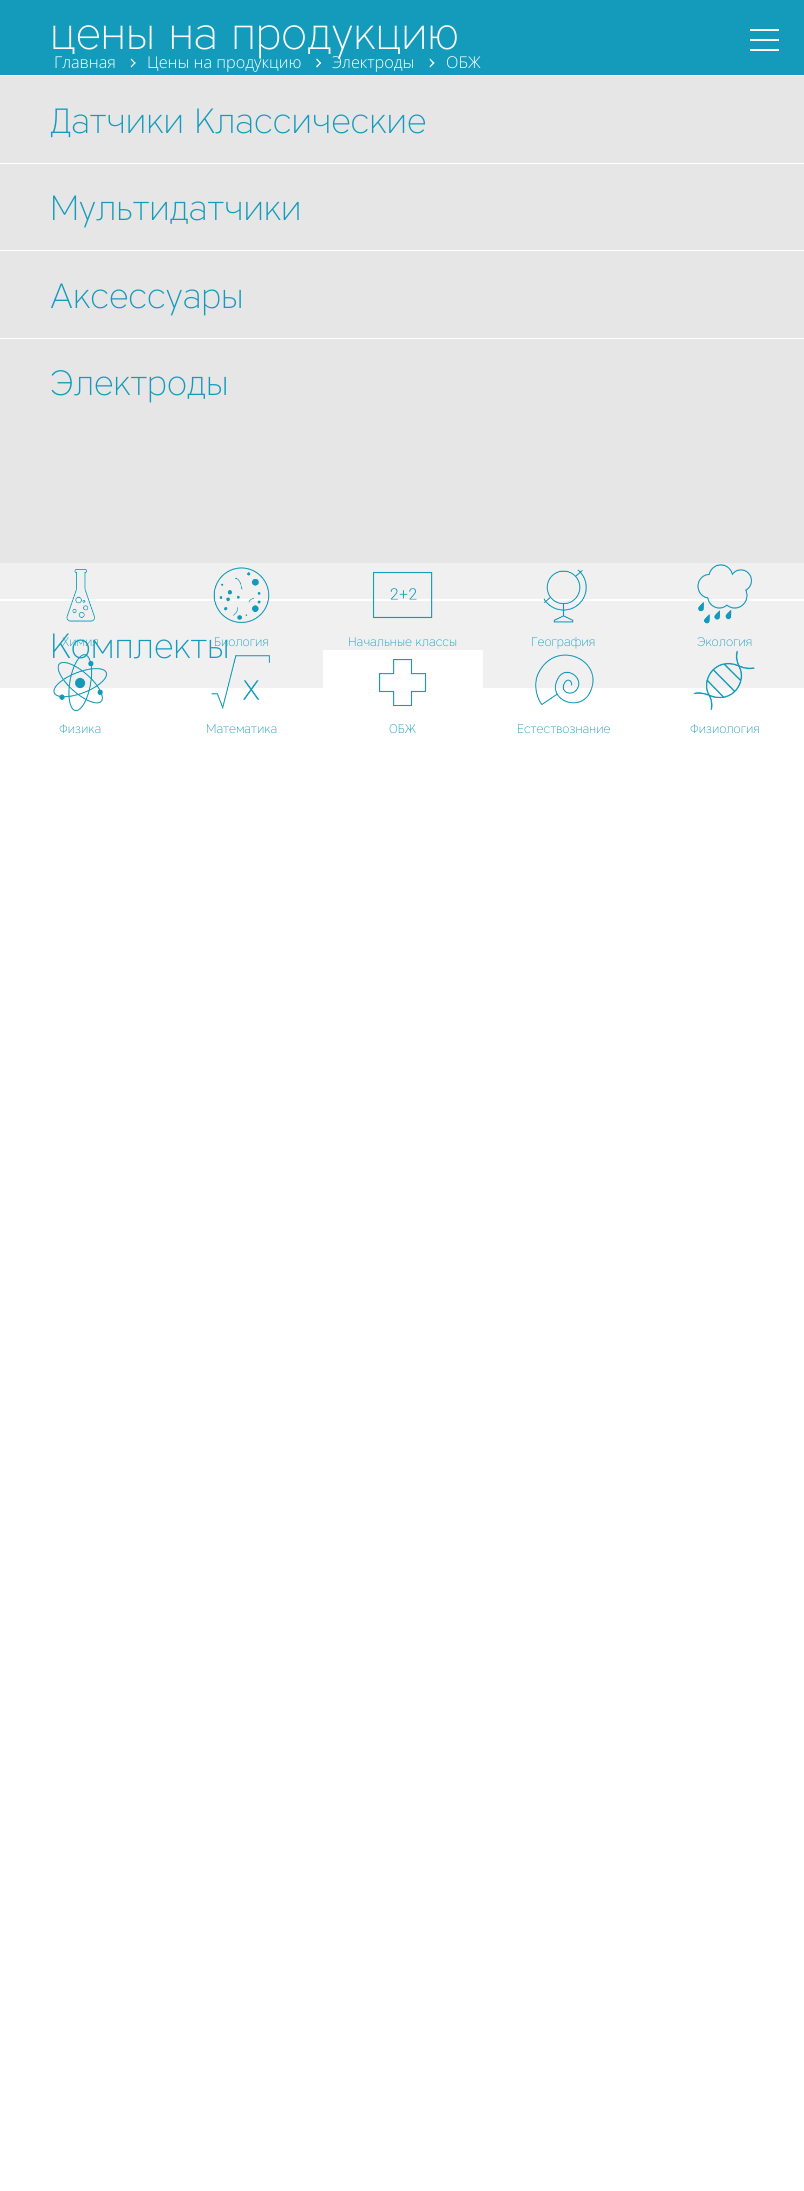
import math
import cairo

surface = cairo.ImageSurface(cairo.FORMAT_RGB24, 804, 2191)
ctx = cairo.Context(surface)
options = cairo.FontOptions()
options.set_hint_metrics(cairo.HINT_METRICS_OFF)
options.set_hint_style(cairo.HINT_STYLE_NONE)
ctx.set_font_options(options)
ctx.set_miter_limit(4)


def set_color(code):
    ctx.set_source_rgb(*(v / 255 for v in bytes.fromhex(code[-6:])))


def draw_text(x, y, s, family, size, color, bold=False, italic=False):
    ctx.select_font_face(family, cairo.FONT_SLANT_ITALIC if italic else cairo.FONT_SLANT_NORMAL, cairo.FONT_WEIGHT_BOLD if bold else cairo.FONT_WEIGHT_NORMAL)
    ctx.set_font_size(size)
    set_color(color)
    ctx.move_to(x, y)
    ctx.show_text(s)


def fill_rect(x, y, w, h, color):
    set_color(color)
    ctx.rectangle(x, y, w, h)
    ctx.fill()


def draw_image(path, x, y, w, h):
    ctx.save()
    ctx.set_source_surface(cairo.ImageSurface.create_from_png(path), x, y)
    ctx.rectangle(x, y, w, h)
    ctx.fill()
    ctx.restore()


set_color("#ffffff")
ctx.paint()
fill_rect(0, 76, 804, 487, "#e6e6e6")
fill_rect(483, 650, 321, 38, "#f0f0f0")
fill_rect(0, 650, 323, 38, "#f0f0f0")
fill_rect(0, 563, 804, 87, "#f0f0f0")
fill_rect(0, 0, 804, 75, "#149bbb")
draw_text(50, 49, "цены на продукцию", "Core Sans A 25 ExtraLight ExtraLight", 45, "#ffffff")
draw_text(54, 68, "Главная", "Open Sans Light", 16.25, "#ffffff")
ctx.new_path()
ctx.move_to(131.5, 58.5)
ctx.line_to(135.5, 63)
ctx.line_to(135, 64)
ctx.line_to(130.5, 59.5)
ctx.close_path()
ctx.fill()
ctx.new_path()
ctx.move_to(135, 62)
ctx.line_to(135.5, 63)
ctx.line_to(131.5, 67.5)
ctx.line_to(130.5, 66.5)
ctx.close_path()
ctx.fill()
draw_text(147, 68, "Цены на продукцию", "Open Sans Light", 16.25, "#ffffff")
ctx.new_path()
ctx.move_to(317, 58.5)
ctx.line_to(321, 63)
ctx.line_to(320.5, 64)
ctx.line_to(316, 59.5)
ctx.close_path()
ctx.fill()
ctx.new_path()
ctx.move_to(320.5, 62)
ctx.line_to(321, 63)
ctx.line_to(317, 67.5)
ctx.line_to(316, 66.5)
ctx.close_path()
ctx.fill()
draw_text(332, 68, "Электроды", "Open Sans Light", 16.25, "#ffffff")
ctx.new_path()
ctx.move_to(430, 58.5)
ctx.line_to(434.5, 63)
ctx.line_to(433.5, 64)
ctx.line_to(429.5, 59.5)
ctx.close_path()
ctx.fill()
ctx.new_path()
ctx.move_to(433.5, 62)
ctx.line_to(434.5, 63)
ctx.line_to(430, 67.5)
ctx.line_to(429.5, 66.5)
ctx.close_path()
ctx.fill()
draw_text(446, 68, "ОБЖ", "Open Sans Light", 16.25, "#ffffff")
draw_text(50, 133, "Датчики Классические", "Core Sans A 25 ExtraLight ExtraLight", 35, "#149bbb")
fill_rect(0, 163, 804, 1, "#ffffff")
draw_text(50, 220, "Мультидатчики", "Core Sans A 25 ExtraLight ExtraLight", 35, "#149bbb")
fill_rect(0, 250, 804, 1, "#ffffff")
draw_text(50, 308, "Аксессуары", "Core Sans A 25 ExtraLight ExtraLight", 35, "#149bbb")
fill_rect(0, 338, 804, 1, "#ffffff")
draw_text(50, 395, "Электроды", "Core Sans A 25 ExtraLight ExtraLight", 35, "#149bbb")
draw_text(62, 646, "Химия", "Core Sans A 25 ExtraLight ExtraLight", 12.5, "#149bbb")
draw_text(214, 646, "Биология", "Core Sans A 25 ExtraLight ExtraLight", 12.5, "#149bbb")
draw_image("assets/img6.png", 53, 654, 54, 57)
draw_image("assets/img7.png", 211, 655, 59, 54)
draw_text(50, 658, "Комплекты", "Core Sans A 25 ExtraLight ExtraLight", 35, "#149bbb")
fill_rect(0, 600, 804, 1, "#ffffff")
fill_rect(0, 599, 804, 1, "#ffffff")
draw_image("assets/img1.png", 66, 569, 29, 53)
draw_image("assets/img2.png", 213, 567, 57, 56)
draw_image("assets/img3.png", 372, 571, 61, 48)
draw_text(348, 646, "Начальные классы", "Core Sans A 25 ExtraLight ExtraLight", 12.5, "#149bbb")
draw_image("assets/img4.png", 543, 569, 44, 54)
draw_text(531, 646, "География", "Core Sans A 25 ExtraLight ExtraLight", 12.5, "#149bbb")
draw_image("assets/img5.png", 697, 564, 55, 60)
draw_text(697, 646, "Экология", "Core Sans A 25 ExtraLight ExtraLight", 12.5, "#149bbb")
draw_text(59, 733, "Физика", "Core Sans A 25 ExtraLight ExtraLight", 12.5, "#149bbb")
draw_text(206, 733, "Математика", "Core Sans A 25 ExtraLight ExtraLight", 12.5, "#149bbb")
draw_image("assets/img8.png", 379, 659, 48, 48)
draw_text(389, 733, "ОБЖ", "Core Sans A 25 ExtraLight ExtraLight", 12.5, "#149bbb")
draw_image("assets/img9.png", 535, 654, 59, 51)
draw_text(517, 733, "Естествознание", "Core Sans A 25 ExtraLight ExtraLight", 12.5, "#149bbb")
draw_image("assets/img10.png", 693, 650, 62, 60)
draw_text(690, 733, "Физиология", "Core Sans A 25 ExtraLight ExtraLight", 12.5, "#149bbb")
set_color("#ffffff")
ctx.rectangle(749.5, 28.5, 30, 3)
ctx.fill_preserve()
set_color("#149bbb")
ctx.set_line_width(1)
ctx.stroke()
set_color("#ffffff")
ctx.rectangle(749.5, 38.5, 30, 3)
ctx.fill_preserve()
set_color("#149bbb")
ctx.stroke()
set_color("#ffffff")
ctx.rectangle(749.5, 48.5, 30, 3)
ctx.fill_preserve()
set_color("#149bbb")
ctx.stroke()
surface.write_to_png("output.png")
